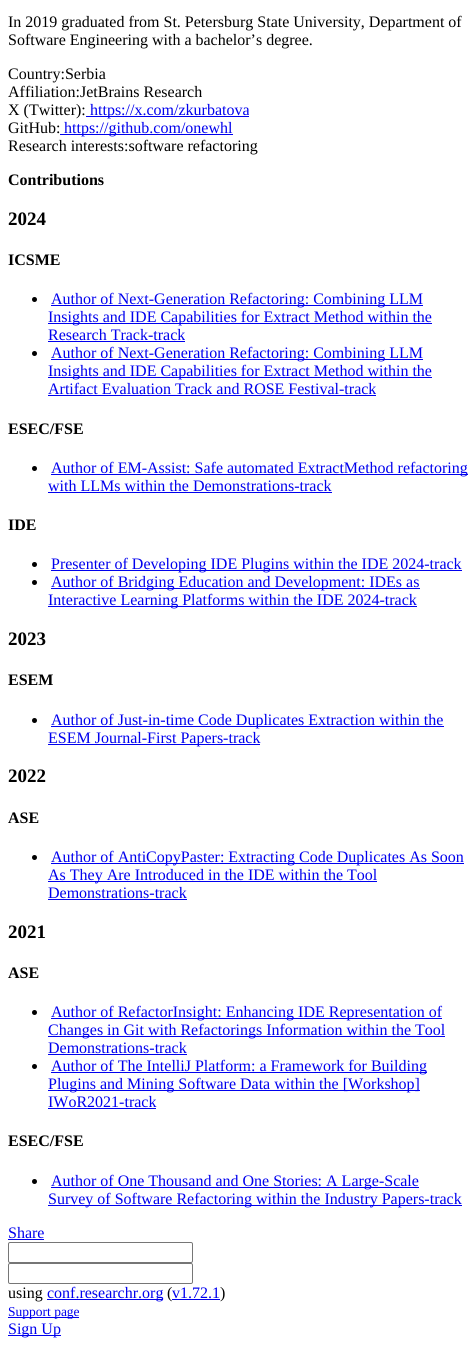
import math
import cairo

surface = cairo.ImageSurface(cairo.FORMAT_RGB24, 476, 1346)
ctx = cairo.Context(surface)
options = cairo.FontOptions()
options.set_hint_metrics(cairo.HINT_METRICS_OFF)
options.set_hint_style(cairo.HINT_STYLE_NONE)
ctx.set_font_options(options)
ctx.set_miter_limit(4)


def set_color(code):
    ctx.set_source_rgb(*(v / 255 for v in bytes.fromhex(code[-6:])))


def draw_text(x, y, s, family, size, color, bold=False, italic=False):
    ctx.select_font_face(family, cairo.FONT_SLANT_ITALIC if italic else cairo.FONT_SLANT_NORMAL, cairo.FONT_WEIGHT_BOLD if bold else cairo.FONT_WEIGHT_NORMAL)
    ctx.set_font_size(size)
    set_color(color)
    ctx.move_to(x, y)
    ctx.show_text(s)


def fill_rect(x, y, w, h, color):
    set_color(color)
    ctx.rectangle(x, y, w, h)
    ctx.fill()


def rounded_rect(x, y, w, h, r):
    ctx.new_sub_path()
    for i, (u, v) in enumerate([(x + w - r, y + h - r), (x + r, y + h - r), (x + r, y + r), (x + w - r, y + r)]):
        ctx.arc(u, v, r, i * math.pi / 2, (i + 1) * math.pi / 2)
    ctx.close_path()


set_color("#ffffff")
ctx.paint()
draw_text(8, 27, "In 2019 graduated from St. Petersburg State University, Department of", "Liberation Serif", 16, "#000000")
draw_text(8, 45, "Software Engineering with a bachelor’s degree.", "Liberation Serif", 16, "#000000")
draw_text(8, 79, "Country:Serbia", "Liberation Serif", 16, "#000000")
draw_text(8, 97, "Affiliation:JetBrains Research", "Liberation Serif", 16, "#000000")
draw_text(8, 115, "X (Twitter):", "Liberation Serif", 16, "#000000")
fill_rect(86, 116, 163, 1, "#0000ee")
draw_text(90, 115, "https://x.com/zkurbatova", "Liberation Serif", 16, "#0000ee")
draw_text(8, 133, "GitHub:", "Liberation Serif", 16, "#000000")
fill_rect(60, 134, 173, 1, "#0000ee")
draw_text(64, 133, "https://github.com/onewhl", "Liberation Serif", 16, "#0000ee")
draw_text(8, 151, "Research interests:software refactoring", "Liberation Serif", 16, "#000000")
draw_text(8, 185, "Contributions", "Liberation Serif", 16, "#000000", bold=True)
draw_text(8, 225, "2024", "Liberation Serif", 19, "#000000", bold=True)
draw_text(8, 265, "ICSME", "Liberation Serif", 16, "#000000", bold=True)
ctx.new_path()
ctx.arc(34.5, 299.5, 2.5, 0, 2 * math.pi)
ctx.fill()
fill_rect(51, 305, 372, 1, "#0000ee")
draw_text(51, 304, "Author of Next-Generation Refactoring: Combining LLM", "Liberation Serif", 16, "#0000ee")
fill_rect(48, 323, 384, 1, "#0000ee")
draw_text(48, 322, "Insights and IDE Capabilities for Extract Method within the", "Liberation Serif", 16, "#0000ee")
draw_text(48, 340, "Research Track-track", "Liberation Serif", 16, "#0000ee")
fill_rect(48, 341, 137, 1, "#0000ee")
set_color("#000000")
ctx.new_path()
ctx.arc(34.5, 353.5, 2.5, 0, 2 * math.pi)
ctx.fill()
fill_rect(51, 359, 372, 1, "#0000ee")
draw_text(51, 358, "Author of Next-Generation Refactoring: Combining LLM", "Liberation Serif", 16, "#0000ee")
fill_rect(48, 377, 384, 1, "#0000ee")
draw_text(48, 376, "Insights and IDE Capabilities for Extract Method within the", "Liberation Serif", 16, "#0000ee")
draw_text(48, 394, "Artifact Evaluation Track and ROSE Festival-track", "Liberation Serif", 16, "#0000ee")
fill_rect(48, 395, 328, 1, "#0000ee")
draw_text(8, 434, "ESEC/FSE", "Liberation Serif", 16, "#000000", bold=True)
ctx.new_path()
ctx.arc(34.5, 468.5, 2.5, 0, 2 * math.pi)
ctx.fill()
fill_rect(51, 474, 417, 1, "#0000ee")
draw_text(51, 473, "Author of EM-Assist: Safe automated ExtractMethod refactoring", "Liberation Serif", 16, "#0000ee")
draw_text(48, 491, "with LLMs within the Demonstrations-track", "Liberation Serif", 16, "#0000ee")
fill_rect(48, 492, 284, 1, "#0000ee")
draw_text(8, 530, "IDE", "Liberation Serif", 16, "#000000", bold=True)
ctx.new_path()
ctx.arc(34.5, 564.5, 2.5, 0, 2 * math.pi)
ctx.fill()
fill_rect(51, 570, 411, 1, "#0000ee")
draw_text(51, 569, "Presenter of Developing IDE Plugins within the IDE 2024-track", "Liberation Serif", 16, "#0000ee")
set_color("#000000")
ctx.new_path()
ctx.arc(34.5, 582.5, 2.5, 0, 2 * math.pi)
ctx.fill()
fill_rect(51, 588, 369, 1, "#0000ee")
draw_text(51, 587, "Author of Bridging Education and Development: IDEs as", "Liberation Serif", 16, "#0000ee")
fill_rect(48, 606, 369, 1, "#0000ee")
draw_text(48, 605, "Interactive Learning Platforms within the IDE 2024-track", "Liberation Serif", 16, "#0000ee")
draw_text(8, 645, "2023", "Liberation Serif", 19, "#000000", bold=True)
draw_text(8, 685, "ESEM", "Liberation Serif", 16, "#000000", bold=True)
ctx.new_path()
ctx.arc(34.5, 720.5, 2.5, 0, 2 * math.pi)
ctx.fill()
fill_rect(51, 726, 393, 1, "#0000ee")
draw_text(51, 725, "Author of Just-in-time Code Duplicates Extraction within the", "Liberation Serif", 16, "#0000ee")
fill_rect(48, 744, 212, 1, "#0000ee")
draw_text(48, 743, "ESEM Journal-First Papers-track", "Liberation Serif", 16, "#0000ee")
draw_text(8, 782, "2022", "Liberation Serif", 19, "#000000", bold=True)
draw_text(8, 823, "ASE", "Liberation Serif", 16, "#000000", bold=True)
ctx.new_path()
ctx.arc(34.5, 857.5, 2.5, 0, 2 * math.pi)
ctx.fill()
fill_rect(51, 863, 413, 1, "#0000ee")
draw_text(51, 862, "Author of AntiCopyPaster: Extracting Code Duplicates As Soon", "Liberation Serif", 16, "#0000ee")
fill_rect(48, 881, 329, 1, "#0000ee")
draw_text(48, 880, "As They Are Introduced in the IDE within the Tool", "Liberation Serif", 16, "#0000ee")
draw_text(48, 898, "Demonstrations-track", "Liberation Serif", 16, "#0000ee")
fill_rect(48, 899, 139, 1, "#0000ee")
draw_text(8, 938, "2021", "Liberation Serif", 19, "#000000", bold=True)
draw_text(8, 978, "ASE", "Liberation Serif", 16, "#000000", bold=True)
ctx.new_path()
ctx.arc(34.5, 1012.5, 2.5, 0, 2 * math.pi)
ctx.fill()
fill_rect(51, 1018, 391, 1, "#0000ee")
draw_text(51, 1017, "Author of RefactorInsight: Enhancing IDE Representation of", "Liberation Serif", 16, "#0000ee")
fill_rect(48, 1036, 397, 1, "#0000ee")
draw_text(48, 1035, "Changes in Git with Refactorings Information within the Tool", "Liberation Serif", 16, "#0000ee")
draw_text(48, 1053, "Demonstrations-track", "Liberation Serif", 16, "#0000ee")
fill_rect(48, 1054, 139, 1, "#0000ee")
set_color("#000000")
ctx.new_path()
ctx.arc(34.5, 1066.5, 2.5, 0, 2 * math.pi)
ctx.fill()
fill_rect(51, 1072, 376, 1, "#0000ee")
draw_text(51, 1071, "Author of The IntelliJ Platform: a Framework for Building", "Liberation Serif", 16, "#0000ee")
fill_rect(48, 1090, 372, 1, "#0000ee")
draw_text(48, 1089, "Plugins and Mining Software Data within the [Workshop]", "Liberation Serif", 16, "#0000ee")
draw_text(48, 1107, "IWoR2021-track", "Liberation Serif", 16, "#0000ee")
fill_rect(48, 1108, 108, 1, "#0000ee")
draw_text(8, 1146, "ESEC/FSE", "Liberation Serif", 16, "#000000", bold=True)
ctx.new_path()
ctx.arc(34.5, 1181.5, 2.5, 0, 2 * math.pi)
ctx.fill()
fill_rect(51, 1187, 368, 1, "#0000ee")
draw_text(51, 1186, "Author of One Thousand and One Stories: A Large-Scale", "Liberation Serif", 16, "#0000ee")
fill_rect(48, 1205, 414, 1, "#0000ee")
draw_text(48, 1204, "Survey of Software Refactoring within the Industry Papers-track", "Liberation Serif", 16, "#0000ee")
draw_text(8, 1238, "Share", "Liberation Serif", 16, "#0000ee")
fill_rect(8, 1239, 36, 1, "#0000ee")
rounded_rect(8.5, 1242.5, 184, 20, 1.5)
set_color("#767676")
ctx.set_line_width(1)
ctx.stroke()
rounded_rect(8.5, 1263.5, 184, 20, 1.5)
ctx.stroke()
draw_text(8, 1298, "using", "Liberation Serif", 16, "#000000")
fill_rect(47, 1299, 116, 1, "#0000ee")
draw_text(47, 1298, "conf.researchr.org", "Liberation Serif", 16, "#0000ee")
draw_text(167, 1298, "(", "Liberation Serif", 16, "#000000")
draw_text(172, 1298, "v1.72.1", "Liberation Serif", 16, "#0000ee")
fill_rect(172, 1299, 48, 1, "#0000ee")
draw_text(220, 1298, ")", "Liberation Serif", 16, "#000000")
fill_rect(8, 1317, 71, 1, "#0000ee")
draw_text(8, 1316, "Support page", "Liberation Serif", 13.5, "#0000ee")
fill_rect(8, 1335, 53, 1, "#0000ee")
draw_text(8, 1334, "Sign Up", "Liberation Serif", 16, "#0000ee")
surface.write_to_png("output.png")
